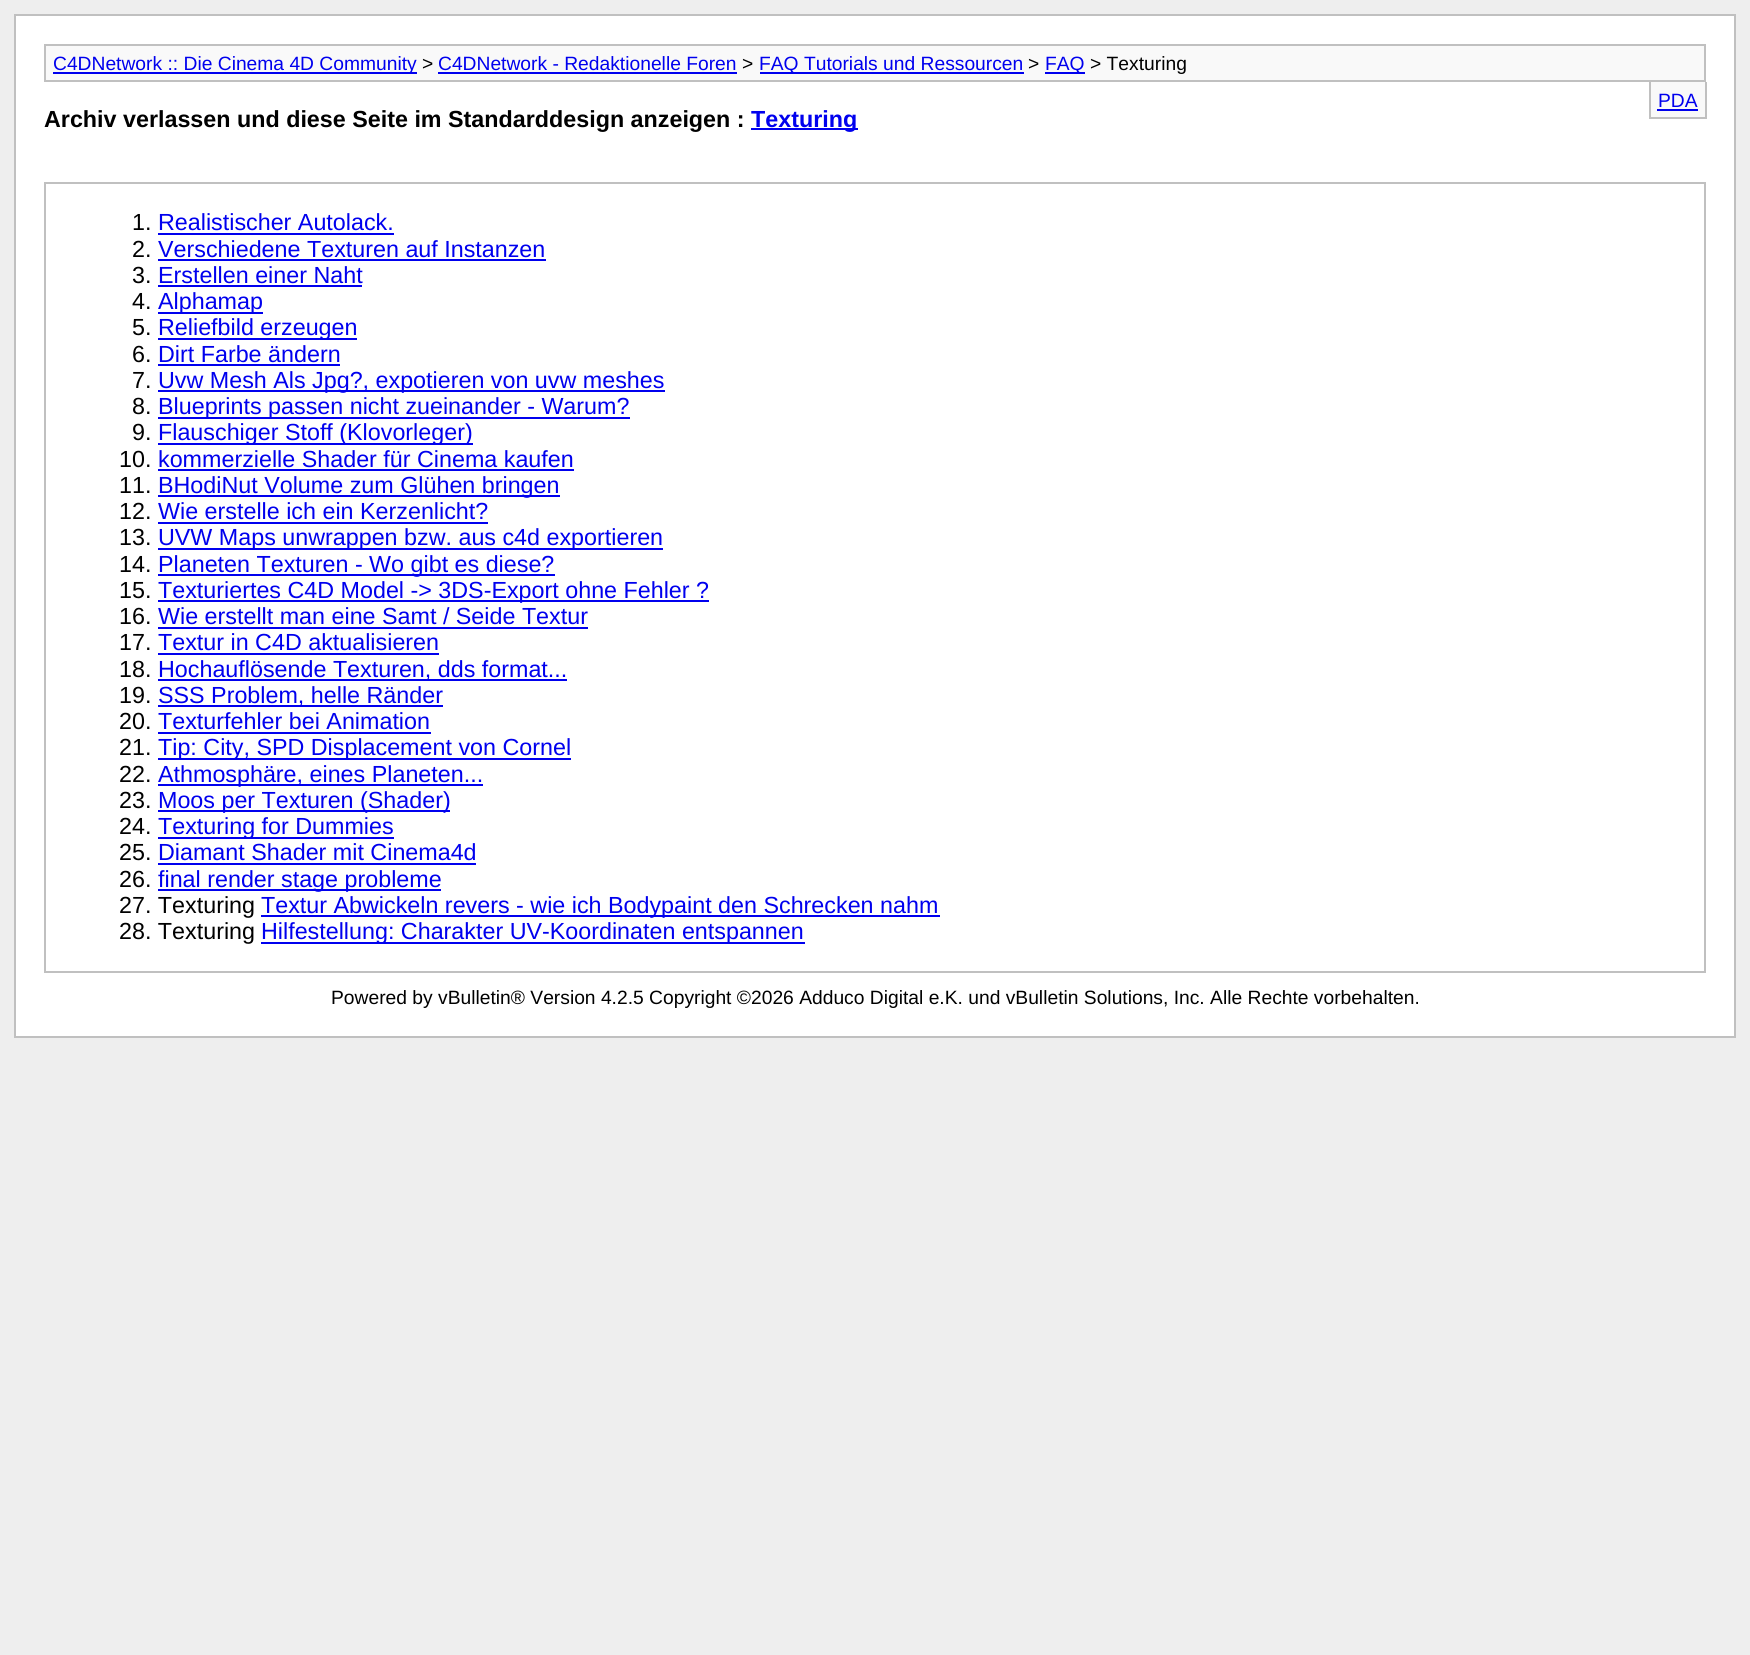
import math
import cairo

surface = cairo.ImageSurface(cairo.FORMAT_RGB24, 1750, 1655)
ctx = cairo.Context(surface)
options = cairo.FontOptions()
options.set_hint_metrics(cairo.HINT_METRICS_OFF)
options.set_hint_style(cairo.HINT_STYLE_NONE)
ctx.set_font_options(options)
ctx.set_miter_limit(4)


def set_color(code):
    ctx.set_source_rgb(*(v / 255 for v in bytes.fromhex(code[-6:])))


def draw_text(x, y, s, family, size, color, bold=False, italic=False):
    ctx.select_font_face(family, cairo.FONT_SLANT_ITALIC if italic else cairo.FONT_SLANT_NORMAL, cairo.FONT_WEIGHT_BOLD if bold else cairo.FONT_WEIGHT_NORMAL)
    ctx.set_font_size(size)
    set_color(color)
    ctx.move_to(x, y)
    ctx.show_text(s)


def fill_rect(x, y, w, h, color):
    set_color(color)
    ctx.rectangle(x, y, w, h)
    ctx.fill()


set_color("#eeeeee")
ctx.paint()
set_color("#ffffff")
ctx.rectangle(15, 15, 1720, 1022)
ctx.fill_preserve()
set_color("#c0c0c0")
ctx.stroke()
set_color("#f9f9f9")
ctx.rectangle(45, 45, 1660, 36)
ctx.fill_preserve()
set_color("#c0c0c0")
ctx.stroke()
fill_rect(53, 72, 364, 2, "#0000ee")
draw_text(53, 70, "C4DNetwork :: Die Cinema 4D Community", "Liberation Sans", 19.25, "#0000ee")
draw_text(422, 70, ">", "Liberation Sans", 19.25, "#000000")
draw_text(438, 70, "C4DNetwork - Redaktionelle Foren", "Liberation Sans", 19.25, "#0000ee")
fill_rect(438, 72, 299, 2, "#0000ee")
draw_text(742, 70, ">", "Liberation Sans", 19.25, "#000000")
fill_rect(760, 72, 264, 2, "#0000ee")
draw_text(759, 70, "FAQ Tutorials und Ressourcen", "Liberation Sans", 19.25, "#0000ee")
draw_text(1028, 70, ">", "Liberation Sans", 19.25, "#000000")
fill_rect(1045, 72, 40, 2, "#0000ee")
draw_text(1045, 70, "FAQ", "Liberation Sans", 19.25, "#0000ee")
draw_text(1090, 70, "> Texturing", "Liberation Sans", 19.25, "#000000")
fill_rect(1651, 82, 54, 35, "#f9f9f9")
fill_rect(1705, 82, 2, 37, "#c0c0c0")
fill_rect(1649, 117, 57, 2, "#c0c0c0")
fill_rect(1649, 82, 2, 37, "#c0c0c0")
draw_text(1658, 107, "PDA", "Liberation Sans", 19.25, "#0000ee")
fill_rect(1657, 109, 41, 2, "#0000ee")
draw_text(44, 127, "Archiv verlassen und diese Seite im Standarddesign anzeigen :", "Liberation Sans", 23.3, "#000000", bold=True)
fill_rect(751, 128, 107, 2, "#0000ee")
draw_text(751, 127, "Texturing", "Liberation Sans", 23.3, "#0000ee", bold=True)
ctx.rectangle(45, 183, 1660, 789)
set_color("#c0c0c0")
ctx.stroke()
draw_text(132, 230, "1.", "Liberation Sans", 23.3, "#000000")
draw_text(158, 230, "Realistischer Autolack.", "Liberation Sans", 23.3, "#0000ee")
fill_rect(158, 233, 236, 2, "#0000ee")
draw_text(132, 257, "2.", "Liberation Sans", 23.3, "#000000")
draw_text(158, 257, "Verschiedene Texturen auf Instanzen", "Liberation Sans", 23.3, "#0000ee")
fill_rect(158, 259, 388, 2, "#0000ee")
draw_text(132, 283, "3.", "Liberation Sans", 23.3, "#000000")
draw_text(158, 283, "Erstellen einer Naht", "Liberation Sans", 23.3, "#0000ee")
fill_rect(158, 285, 204, 2, "#0000ee")
draw_text(132, 309, "4.", "Liberation Sans", 23.3, "#000000")
fill_rect(158, 312, 105, 2, "#0000ee")
draw_text(158, 309, "Alphamap", "Liberation Sans", 23.3, "#0000ee")
draw_text(132, 335, "5.", "Liberation Sans", 23.3, "#000000")
fill_rect(158, 338, 199, 2, "#0000ee")
draw_text(158, 335, "Reliefbild erzeugen", "Liberation Sans", 23.3, "#0000ee")
draw_text(132, 362, "6.", "Liberation Sans", 23.3, "#000000")
draw_text(158, 362, "Dirt Farbe ändern", "Liberation Sans", 23.3, "#0000ee")
fill_rect(158, 364, 182, 2, "#0000ee")
draw_text(132, 388, "7.", "Liberation Sans", 23.3, "#000000")
fill_rect(158, 390, 507, 2, "#0000ee")
draw_text(158, 388, "Uvw Mesh Als Jpg?, expotieren von uvw meshes", "Liberation Sans", 23.3, "#0000ee")
draw_text(132, 414, "8.", "Liberation Sans", 23.3, "#000000")
fill_rect(158, 417, 472, 2, "#0000ee")
draw_text(158, 414, "Blueprints passen nicht zueinander - Warum?", "Liberation Sans", 23.3, "#0000ee")
draw_text(132, 440, "9.", "Liberation Sans", 23.3, "#000000")
fill_rect(158, 443, 315, 2, "#0000ee")
draw_text(158, 440, "Flauschiger Stoff (Klovorleger)", "Liberation Sans", 23.3, "#0000ee")
draw_text(119, 467, "10.", "Liberation Sans", 23.3, "#000000")
draw_text(158, 467, "kommerzielle Shader für Cinema kaufen", "Liberation Sans", 23.3, "#0000ee")
fill_rect(158, 469, 416, 2, "#0000ee")
draw_text(119, 493, "11.", "Liberation Sans", 23.3, "#000000")
fill_rect(158, 495, 402, 2, "#0000ee")
draw_text(158, 493, "BHodiNut Volume zum Glühen bringen", "Liberation Sans", 23.3, "#0000ee")
draw_text(119, 519, "12.", "Liberation Sans", 23.3, "#000000")
draw_text(158, 519, "Wie erstelle ich ein Kerzenlicht?", "Liberation Sans", 23.3, "#0000ee")
fill_rect(158, 522, 330, 2, "#0000ee")
draw_text(119, 545, "13.", "Liberation Sans", 23.3, "#000000")
fill_rect(158, 548, 505, 2, "#0000ee")
draw_text(158, 545, "UVW Maps unwrappen bzw. aus c4d exportieren", "Liberation Sans", 23.3, "#0000ee")
draw_text(119, 572, "14.", "Liberation Sans", 23.3, "#000000")
fill_rect(158, 574, 397, 2, "#0000ee")
draw_text(158, 572, "Planeten Texturen - Wo gibt es diese?", "Liberation Sans", 23.3, "#0000ee")
draw_text(119, 598, "15.", "Liberation Sans", 23.3, "#000000")
fill_rect(158, 600, 551, 2, "#0000ee")
draw_text(158, 598, "Texturiertes C4D Model -> 3DS-Export ohne Fehler ?", "Liberation Sans", 23.3, "#0000ee")
draw_text(119, 624, "16.", "Liberation Sans", 23.3, "#000000")
draw_text(158, 624, "Wie erstellt man eine Samt / Seide Textur", "Liberation Sans", 23.3, "#0000ee")
fill_rect(158, 627, 430, 2, "#0000ee")
draw_text(119, 650, "17.", "Liberation Sans", 23.3, "#000000")
draw_text(158, 650, "Textur in C4D aktualisieren", "Liberation Sans", 23.3, "#0000ee")
fill_rect(158, 653, 281, 2, "#0000ee")
draw_text(119, 677, "18.", "Liberation Sans", 23.3, "#000000")
fill_rect(158, 679, 409, 2, "#0000ee")
draw_text(158, 677, "Hochauflösende Texturen, dds format...", "Liberation Sans", 23.3, "#0000ee")
draw_text(119, 703, "19.", "Liberation Sans", 23.3, "#000000")
fill_rect(158, 705, 285, 2, "#0000ee")
draw_text(158, 703, "SSS Problem, helle Ränder", "Liberation Sans", 23.3, "#0000ee")
draw_text(119, 729, "20.", "Liberation Sans", 23.3, "#000000")
draw_text(158, 729, "Texturfehler bei Animation", "Liberation Sans", 23.3, "#0000ee")
fill_rect(158, 732, 273, 2, "#0000ee")
draw_text(119, 755, "21.", "Liberation Sans", 23.3, "#000000")
fill_rect(158, 758, 413, 2, "#0000ee")
draw_text(158, 755, "Tip: City, SPD Displacement von Cornel", "Liberation Sans", 23.3, "#0000ee")
draw_text(119, 782, "22.", "Liberation Sans", 23.3, "#000000")
fill_rect(158, 784, 325, 2, "#0000ee")
draw_text(158, 782, "Athmosphäre, eines Planeten...", "Liberation Sans", 23.3, "#0000ee")
draw_text(119, 808, "23.", "Liberation Sans", 23.3, "#000000")
fill_rect(158, 810, 292, 2, "#0000ee")
draw_text(158, 808, "Moos per Texturen (Shader)", "Liberation Sans", 23.3, "#0000ee")
draw_text(119, 834, "24.", "Liberation Sans", 23.3, "#000000")
fill_rect(158, 837, 236, 2, "#0000ee")
draw_text(158, 834, "Texturing for Dummies", "Liberation Sans", 23.3, "#0000ee")
draw_text(119, 860, "25.", "Liberation Sans", 23.3, "#000000")
draw_text(158, 860, "Diamant Shader mit Cinema4d", "Liberation Sans", 23.3, "#0000ee")
fill_rect(158, 863, 318, 2, "#0000ee")
draw_text(119, 887, "26.", "Liberation Sans", 23.3, "#000000")
fill_rect(158, 889, 283, 2, "#0000ee")
draw_text(158, 887, "final render stage probleme", "Liberation Sans", 23.3, "#0000ee")
draw_text(119, 913, "27. Texturing", "Liberation Sans", 23.3, "#000000")
fill_rect(261, 915, 679, 2, "#0000ee")
draw_text(261, 913, "Textur Abwickeln revers - wie ich Bodypaint den Schrecken nahm", "Liberation Sans", 23.3, "#0000ee")
draw_text(119, 939, "28. Texturing", "Liberation Sans", 23.3, "#000000")
fill_rect(261, 942, 544, 2, "#0000ee")
draw_text(261, 939, "Hilfestellung: Charakter UV-Koordinaten entspannen", "Liberation Sans", 23.3, "#0000ee")
draw_text(331, 1004, "Powered by vBulletin® Version 4.2.5 Copyright ©2026 Adduco Digital e.K. und vBulletin Solutions, Inc. Alle Rechte vorbehalten.", "Liberation Sans", 19.25, "#000000")
surface.write_to_png("output.png")
